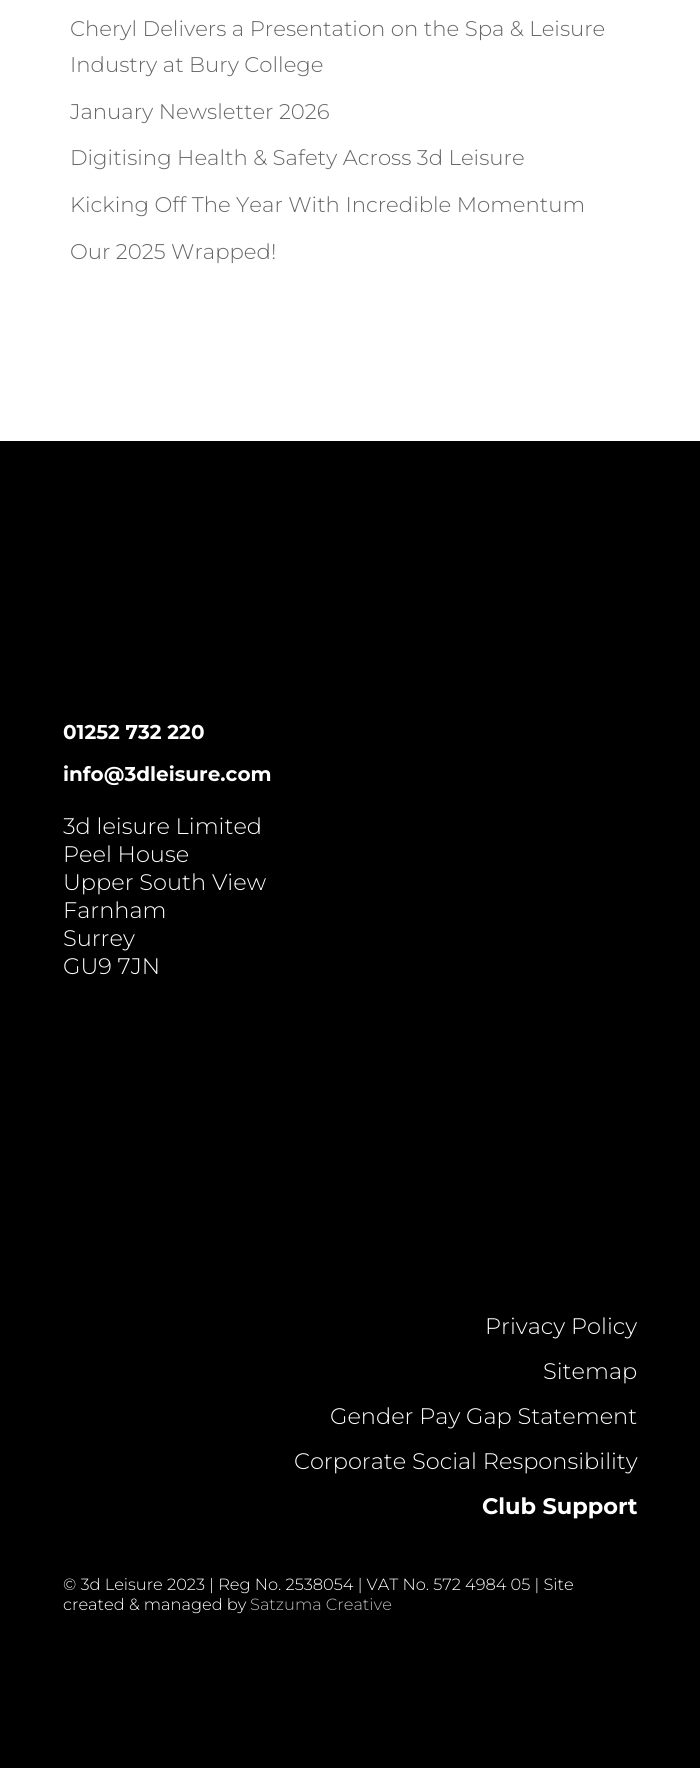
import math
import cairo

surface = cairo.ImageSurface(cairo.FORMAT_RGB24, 700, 1768)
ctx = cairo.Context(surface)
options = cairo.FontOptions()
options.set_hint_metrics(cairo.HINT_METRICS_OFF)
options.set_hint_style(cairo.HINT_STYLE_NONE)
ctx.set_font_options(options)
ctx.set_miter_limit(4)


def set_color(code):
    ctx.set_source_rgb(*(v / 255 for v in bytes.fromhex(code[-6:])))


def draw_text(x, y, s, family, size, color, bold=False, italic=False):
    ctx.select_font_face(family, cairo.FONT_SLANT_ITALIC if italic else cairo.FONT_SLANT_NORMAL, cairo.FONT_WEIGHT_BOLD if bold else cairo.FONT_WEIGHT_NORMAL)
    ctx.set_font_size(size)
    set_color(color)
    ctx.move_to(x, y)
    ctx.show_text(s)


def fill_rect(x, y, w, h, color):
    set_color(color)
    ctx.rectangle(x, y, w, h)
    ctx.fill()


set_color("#000000")
ctx.paint()
fill_rect(0, 0, 700, 441, "#ffffff")
draw_text(70, 36, "Cheryl Delivers a Presentation on the Spa & Leisure", "Montserrat Light", 21.25, "#666666")
draw_text(70, 72, "Industry at Bury College", "Montserrat Light", 21.25, "#666666")
draw_text(70, 119, "January Newsletter 2026", "Montserrat Light", 21.25, "#666666")
draw_text(70, 165, "Digitising Health & Safety Across 3d Leisure", "Montserrat Light", 21.25, "#666666")
draw_text(70, 212, "Kicking Off The Year With Incredible Momentum", "Montserrat Light", 21.25, "#666666")
draw_text(70, 259, "Our 2025 Wrapped!", "Montserrat Light", 21.25, "#666666")
draw_text(63, 739, "01252 732 220", "Montserrat", 20, "#ffffff", bold=True)
draw_text(63, 781, "info@3dleisure.com", "Montserrat", 20, "#ffffff", bold=True)
draw_text(63, 834, "3d leisure Limited", "Montserrat Light", 22.5, "#ffffff")
draw_text(63, 862, "Peel House", "Montserrat Light", 22.5, "#ffffff")
draw_text(63, 890, "Upper South View", "Montserrat Light", 22.5, "#ffffff")
draw_text(63, 918, "Farnham", "Montserrat Light", 22.5, "#ffffff")
draw_text(63, 946, "Surrey", "Montserrat Light", 22.5, "#ffffff")
draw_text(63, 974, "GU9 7JN", "Montserrat Light", 22.5, "#ffffff")
draw_text(485, 1334, "Privacy Policy", "Montserrat Light", 22.5, "#ffffff")
draw_text(543, 1379, "Sitemap", "Montserrat Light", 22.5, "#ffffff")
draw_text(330, 1424, "Gender Pay Gap Statement", "Montserrat Light", 22.5, "#ffffff")
draw_text(294, 1469, "Corporate Social Responsibility", "Montserrat Light", 22.5, "#ffffff")
draw_text(482, 1514, "Club Support", "Montserrat", 22.5, "#ffffff", bold=True)
draw_text(63, 1590, "© 3d Leisure 2023 | Reg No. 2538054 | VAT No. 572 4984 05 | Site", "Montserrat Light", 16.25, "#ffffff")
draw_text(63, 1610, "created & managed by", "Montserrat Light", 16.25, "#ffffff")
draw_text(250, 1610, "Satzuma Creative", "Montserrat Light", 16.25, "#bbbbbb")
surface.write_to_png("output.png")
